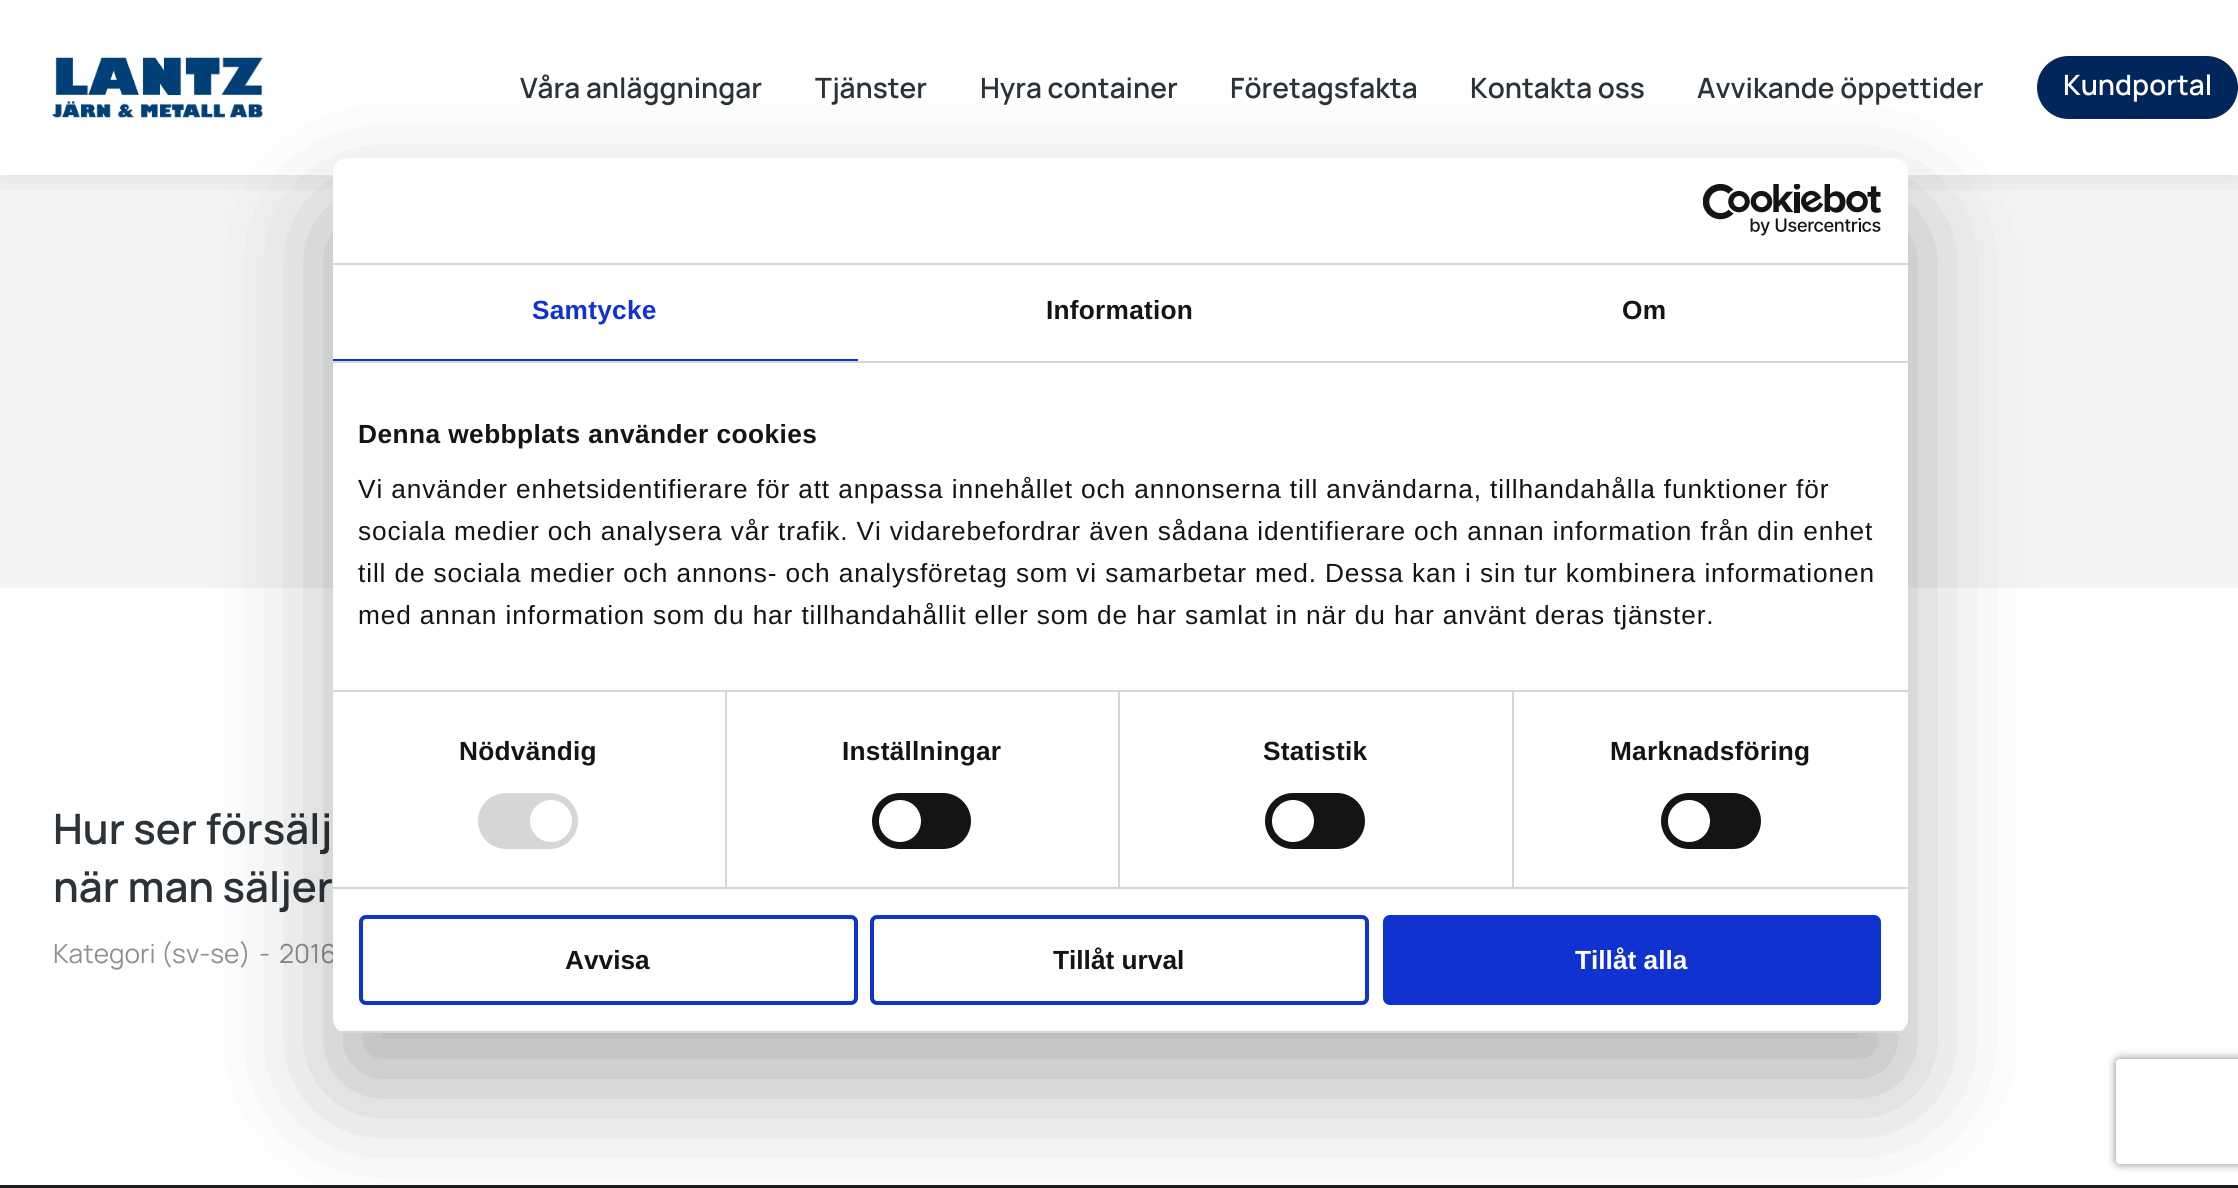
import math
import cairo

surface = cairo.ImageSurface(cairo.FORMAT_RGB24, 2238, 1188)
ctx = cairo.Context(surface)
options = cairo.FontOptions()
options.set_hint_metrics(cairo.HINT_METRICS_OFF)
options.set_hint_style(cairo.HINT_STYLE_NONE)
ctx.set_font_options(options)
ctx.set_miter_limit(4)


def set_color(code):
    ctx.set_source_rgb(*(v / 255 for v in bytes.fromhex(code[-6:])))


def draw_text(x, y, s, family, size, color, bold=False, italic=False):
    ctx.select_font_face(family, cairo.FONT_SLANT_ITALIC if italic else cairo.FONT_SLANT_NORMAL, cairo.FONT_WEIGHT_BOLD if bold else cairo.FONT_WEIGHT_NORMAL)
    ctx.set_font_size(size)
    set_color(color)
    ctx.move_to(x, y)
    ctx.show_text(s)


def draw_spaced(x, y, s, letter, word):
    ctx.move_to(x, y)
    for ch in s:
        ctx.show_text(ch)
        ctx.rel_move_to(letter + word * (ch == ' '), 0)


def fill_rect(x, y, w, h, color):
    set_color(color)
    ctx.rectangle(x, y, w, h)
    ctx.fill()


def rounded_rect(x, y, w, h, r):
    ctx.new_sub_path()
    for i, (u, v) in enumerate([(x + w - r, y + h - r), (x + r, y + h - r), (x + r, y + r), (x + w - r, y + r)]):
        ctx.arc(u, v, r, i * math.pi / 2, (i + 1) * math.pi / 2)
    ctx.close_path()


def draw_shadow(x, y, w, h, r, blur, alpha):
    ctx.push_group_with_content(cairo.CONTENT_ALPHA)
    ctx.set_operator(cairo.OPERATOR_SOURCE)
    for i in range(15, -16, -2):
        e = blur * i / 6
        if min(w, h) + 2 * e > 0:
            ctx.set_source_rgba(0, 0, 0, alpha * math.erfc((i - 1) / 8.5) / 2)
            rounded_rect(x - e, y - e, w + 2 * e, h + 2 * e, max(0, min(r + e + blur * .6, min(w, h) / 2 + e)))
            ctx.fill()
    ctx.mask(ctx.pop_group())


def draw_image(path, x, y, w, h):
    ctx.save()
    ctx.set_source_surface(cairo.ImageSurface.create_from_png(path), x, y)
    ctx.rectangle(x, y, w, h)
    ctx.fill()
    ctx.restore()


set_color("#ffffff")
ctx.paint()
fill_rect(0, 175, 2238, 413, "#f2f4f6")
ctx.save()
ctx.rectangle(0, 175, 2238, 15)
ctx.clip()
set_color("#000000")
draw_shadow(0, 0, 2238, 175, 0, 17.5, 0.1)
ctx.restore()
draw_image("assets/img1.png", 52, 57, 211, 61)
draw_text(520, 98, "Våra anläggningar", "Manrope SemiBold", 28, "#2c3338")
draw_text(815, 98, "Tjänster", "Manrope SemiBold", 28, "#2c3338")
draw_text(980, 98, "Hyra container", "Manrope SemiBold", 28, "#2c3338")
draw_text(1230, 98, "Företagsfakta", "Manrope SemiBold", 28, "#2c3338")
draw_text(1470, 98, "Kontakta oss", "Manrope SemiBold", 28, "#2c3338")
draw_text(1697, 98, "Avvikande öppettider", "Manrope SemiBold", 28, "#2c3338")
set_color("#00265c")
rounded_rect(2037, 56, 201, 63, 31.5)
ctx.fill()
draw_text(2063, 95, "Kundportal", "Manrope SemiBold", 28, "#ffffff")
draw_text(53, 844, "Hur ser försälj", "Manrope SemiBold", 42, "#2c3338")
draw_text(53, 902, "när man säljer", "Manrope SemiBold", 42, "#2c3338")
draw_text(53, 963, "Kategori (sv-se)", "Manrope", 26.25, "#909090")
draw_text(259, 963, "-", "Manrope", 26.25, "#909090")
draw_text(279, 963, "2016", "Manrope", 26.25, "#909090")
fill_rect(0, 1185, 2238, 3, "#1b1d1f")
set_color("#000000")
draw_shadow(333, 214, 1575, 875, 14, 59.5, 0.3)
set_color("#ffffff")
rounded_rect(333, 158, 1575, 875, 14)
ctx.fill()
fill_rect(333, 263, 1575, 2, "#d6d6d6")
draw_image("assets/img2.png", 1703, 184, 178, 52)
fill_rect(333, 361, 1575, 2, "#d6d6d6")
fill_rect(333, 359, 525, 2, "#1032cf")
ctx.select_font_face("Liberation Sans", cairo.FONT_SLANT_NORMAL, cairo.FONT_WEIGHT_BOLD)
draw_spaced(532, 319, "Samtycke", 0.25, 0)
set_color("#141414")
draw_spaced(1046, 319, "Information", 0.25, 0)
draw_spaced(1622, 319, "Om", 0.25, 0)
fill_rect(725, 691, 2, 196, "#d6d6d6")
fill_rect(1118, 691, 2, 196, "#d6d6d6")
fill_rect(1512, 691, 2, 196, "#d6d6d6")
fill_rect(333, 690, 1575, 2, "#d6d6d6")
set_color("#141414")
draw_spaced(358, 443, "Denna webbplats använder cookies", 0.45, 0)
ctx.select_font_face("Liberation Sans")
draw_spaced(358, 498, "Vi använder enhetsidentifierare för att anpassa innehållet och annonserna till användarna, tillhandahålla funktioner för", 0.88, 0)
draw_spaced(358, 540, "sociala medier och analysera vår trafik. Vi vidarebefordrar även sådana identifierare och annan information från din enhet", 0.88, 0)
draw_spaced(358, 582, "till de sociala medier och annons- och analysföretag som vi samarbetar med. Dessa kan i sin tur kombinera informationen", 0.88, 0)
draw_spaced(358, 624, "med annan information som du har tillhandahållit eller som de har samlat in när du har använt deras tjänster.", 0.88, 0)
fill_rect(333, 887, 1575, 2, "#d6d6d6")
ctx.select_font_face("Liberation Sans", cairo.FONT_SLANT_NORMAL, cairo.FONT_WEIGHT_BOLD)
set_color("#141414")
draw_spaced(459, 760, "Nödvändig", 0.25, 0)
set_color("#d6d6d6")
rounded_rect(478, 793, 100, 56, 28)
ctx.fill()
set_color("#ffffff")
ctx.arc(551, 821, 21, 0, 2 * math.pi)
ctx.fill()
set_color("#141414")
draw_spaced(842, 760, "Inställningar", 0.25, 0)
rounded_rect(872, 793, 99, 56, 28)
ctx.fill()
set_color("#ffffff")
ctx.arc(900, 821, 21, 0, 2 * math.pi)
ctx.fill()
set_color("#141414")
draw_spaced(1263, 760, "Statistik", 0.25, 0)
rounded_rect(1265, 793, 100, 56, 28)
ctx.fill()
set_color("#ffffff")
ctx.arc(1293, 821, 21, 0, 2 * math.pi)
ctx.fill()
set_color("#141414")
draw_spaced(1610, 760, "Marknadsföring", 0.25, 0)
rounded_rect(1661, 793, 100, 56, 28)
ctx.fill()
set_color("#ffffff")
ctx.arc(1689, 821, 21, 0, 2 * math.pi)
ctx.fill()
ctx.save()
rounded_rect(333, 158, 1575, 875, 14)
ctx.clip()
fill_rect(333, 1031, 1575, 2, "#d6d6d6")
ctx.restore()
rounded_rect(361, 917, 495, 86, 5)
set_color("#1032cf")
ctx.set_line_width(4)
ctx.stroke()
draw_text(565, 969, "Avvisa", "Liberation Sans", 26.25, "#141414", bold=True)
rounded_rect(872, 917, 495, 86, 5)
set_color("#1032cf")
ctx.stroke()
draw_text(1053, 969, "Tillåt urval", "Liberation Sans", 26.25, "#141414", bold=True)
set_color("#1032cf")
rounded_rect(1385, 917, 494, 86, 5)
ctx.fill_preserve()
ctx.stroke()
draw_text(1575, 969, "Tillåt alla", "Liberation Sans", 26.25, "#ffffff", bold=True)
ctx.save()
ctx.set_fill_rule(cairo.FILL_RULE_EVEN_ODD)
ctx.new_path()
ctx.move_to(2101, 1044)
ctx.line_to(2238, 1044)
ctx.line_to(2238, 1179)
ctx.line_to(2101, 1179)
ctx.close_path()
ctx.move_to(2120, 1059)
ctx.line_to(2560, 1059)
ctx.curve_to(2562, 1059, 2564, 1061, 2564, 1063)
ctx.line_to(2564, 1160)
ctx.curve_to(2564, 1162, 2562, 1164, 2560, 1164)
ctx.line_to(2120, 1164)
ctx.curve_to(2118, 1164, 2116, 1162, 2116, 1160)
ctx.line_to(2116, 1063)
ctx.curve_to(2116, 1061, 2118, 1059, 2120, 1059)
ctx.close_path()
ctx.clip()
set_color("#808080")
draw_shadow(2116, 1059, 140, 105, 4, 4.5, 1)
ctx.restore()
surface.write_to_png("output.png")
